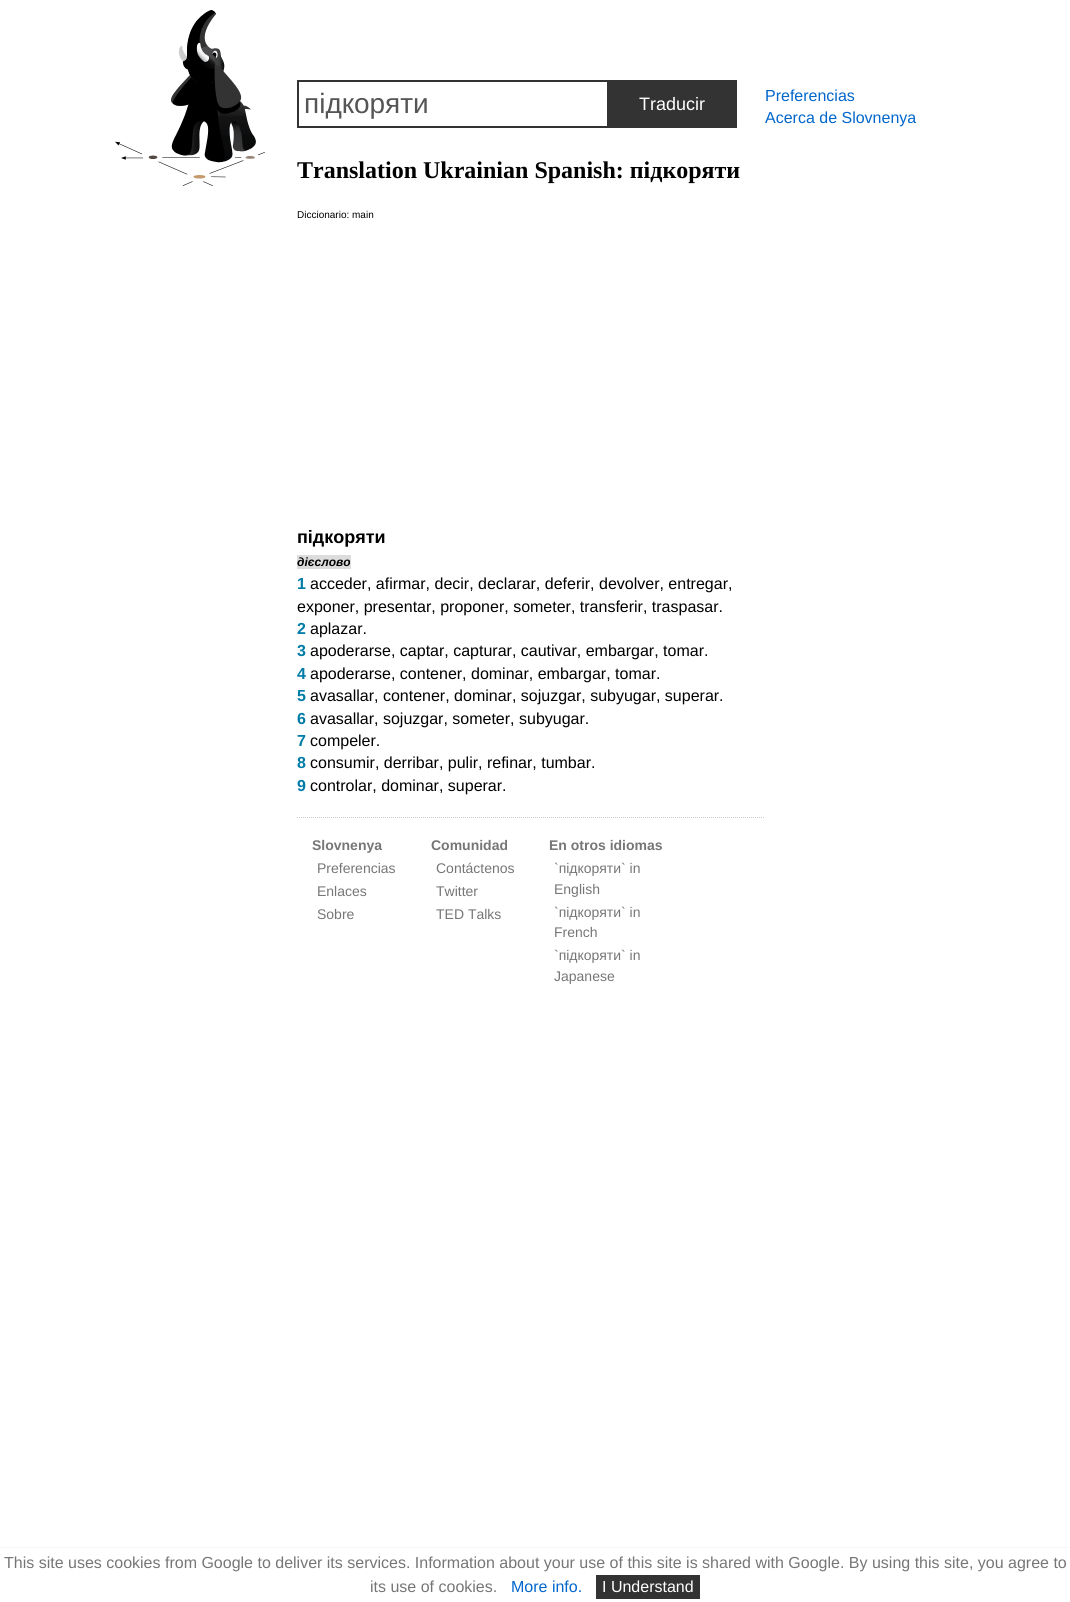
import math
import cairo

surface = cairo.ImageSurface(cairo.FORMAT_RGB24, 1070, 1602)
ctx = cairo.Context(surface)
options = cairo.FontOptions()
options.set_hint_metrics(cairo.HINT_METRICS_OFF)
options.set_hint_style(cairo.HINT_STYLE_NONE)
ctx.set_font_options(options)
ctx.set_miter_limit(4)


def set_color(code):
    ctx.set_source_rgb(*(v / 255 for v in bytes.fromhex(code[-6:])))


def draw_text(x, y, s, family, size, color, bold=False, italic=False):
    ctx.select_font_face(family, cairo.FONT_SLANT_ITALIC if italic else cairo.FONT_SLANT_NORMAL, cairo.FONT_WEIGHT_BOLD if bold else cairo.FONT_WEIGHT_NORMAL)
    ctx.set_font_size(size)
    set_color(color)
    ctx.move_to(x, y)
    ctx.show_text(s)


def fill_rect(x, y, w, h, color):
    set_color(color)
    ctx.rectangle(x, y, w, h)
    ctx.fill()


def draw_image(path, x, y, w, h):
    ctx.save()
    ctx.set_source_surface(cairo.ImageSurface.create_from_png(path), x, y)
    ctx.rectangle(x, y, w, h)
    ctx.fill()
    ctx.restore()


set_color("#ffffff")
ctx.paint()
draw_image("assets/img1.png", 115, 10, 150, 176)
ctx.rectangle(298, 81, 312, 46)
set_color("#333333")
ctx.stroke()
draw_text(304, 113, "підкоряти", "Liberation Sans", 28, "#555555")
fill_rect(607, 80, 130, 48, "#333333")
draw_text(639, 110, "Traducir", "Liberation Sans", 18, "#ffffff")
draw_text(297, 178, "Translation Ukrainian Spanish: підкоряти", "Liberation Serif", 24, "#000000", bold=True)
draw_text(297, 218, "Diccionario: main", "Liberation Sans", 10, "#000000")
draw_text(297, 543, "підкоряти", "Liberation Sans", 18, "#000000", bold=True)
fill_rect(297, 555, 54, 14, "#dcdcdc")
draw_text(297, 566, "дієслово", "Liberation Sans", 12, "#000000", bold=True, italic=True)
draw_text(297, 589, "1", "Liberation Sans", 16, "#007ba7", bold=True)
draw_text(310, 589, "acceder, afirmar, decir, declarar, deferir, devolver, entregar,", "Liberation Sans", 16, "#000000")
draw_text(297, 612, "exponer, presentar, proponer, someter, transferir, traspasar.", "Liberation Sans", 16, "#000000")
draw_text(297, 634, "2", "Liberation Sans", 16, "#007ba7", bold=True)
draw_text(310, 634, "aplazar.", "Liberation Sans", 16, "#000000")
draw_text(297, 656, "3", "Liberation Sans", 16, "#007ba7", bold=True)
draw_text(310, 656, "apoderarse, captar, capturar, cautivar, embargar, tomar.", "Liberation Sans", 16, "#000000")
draw_text(297, 679, "4", "Liberation Sans", 16, "#007ba7", bold=True)
draw_text(310, 679, "apoderarse, contener, dominar, embargar, tomar.", "Liberation Sans", 16, "#000000")
draw_text(297, 701, "5", "Liberation Sans", 16, "#007ba7", bold=True)
draw_text(310, 701, "avasallar, contener, dominar, sojuzgar, subyugar, superar.", "Liberation Sans", 16, "#000000")
draw_text(297, 724, "6", "Liberation Sans", 16, "#007ba7", bold=True)
draw_text(310, 724, "avasallar, sojuzgar, someter, subyugar.", "Liberation Sans", 16, "#000000")
draw_text(297, 746, "7", "Liberation Sans", 16, "#007ba7", bold=True)
draw_text(310, 746, "compeler.", "Liberation Sans", 16, "#000000")
draw_text(297, 768, "8", "Liberation Sans", 16, "#007ba7", bold=True)
draw_text(310, 768, "consumir, derribar, pulir, refinar, tumbar.", "Liberation Sans", 16, "#000000")
draw_text(297, 791, "9", "Liberation Sans", 16, "#007ba7", bold=True)
draw_text(310, 791, "controlar, dominar, superar.", "Liberation Sans", 16, "#000000")
ctx.new_path()
ctx.move_to(297, 817.5)
ctx.line_to(765, 817.5)
set_color("#cccccc")
ctx.set_line_width(1)
ctx.set_dash([1, 1])
ctx.stroke()
draw_text(312, 850, "Slovnenya", "Liberation Sans", 14, "#767676", bold=True)
draw_text(317, 873, "Preferencias", "Liberation Sans", 14, "#767676")
draw_text(317, 896, "Enlaces", "Liberation Sans", 14, "#767676")
draw_text(317, 919, "Sobre", "Liberation Sans", 14, "#767676")
draw_text(431, 850, "Comunidad", "Liberation Sans", 14, "#767676", bold=True)
draw_text(436, 873, "Contáctenos", "Liberation Sans", 14, "#767676")
draw_text(436, 896, "Twitter", "Liberation Sans", 14, "#767676")
draw_text(436, 919, "TED Talks", "Liberation Sans", 14, "#767676")
draw_text(549, 850, "En otros idiomas", "Liberation Sans", 14, "#767676", bold=True)
draw_text(554, 873, "`підкоряти` in", "Liberation Sans", 14, "#767676")
draw_text(554, 894, "English", "Liberation Sans", 14, "#767676")
draw_text(554, 917, "`підкоряти` in", "Liberation Sans", 14, "#767676")
draw_text(554, 937, "French", "Liberation Sans", 14, "#767676")
draw_text(554, 960, "`підкоряти` in", "Liberation Sans", 14, "#767676")
draw_text(554, 981, "Japanese", "Liberation Sans", 14, "#767676")
draw_text(765, 101, "Preferencias", "Liberation Sans", 16, "#0066cc")
draw_text(765, 123, "Acerca de Slovnenya", "Liberation Sans", 16, "#0066cc")
ctx.new_path()
ctx.move_to(0, 1547.5)
ctx.line_to(1070, 1547.5)
set_color("#eeeeee")
ctx.stroke()
draw_text(4, 1568, "This site uses cookies from Google to deliver its services. Information about your use of this site is shared with Google. By using this site, you agree to", "Liberation Sans", 16, "#767676")
draw_text(370, 1592, "its use of cookies.", "Liberation Sans", 16, "#767676")
draw_text(511, 1592, "More info.", "Liberation Sans", 16, "#0066cc")
fill_rect(596, 1575, 104, 24, "#333333")
draw_text(602, 1592, "I Understand", "Liberation Sans", 16, "#ffffff")
surface.write_to_png("output.png")
